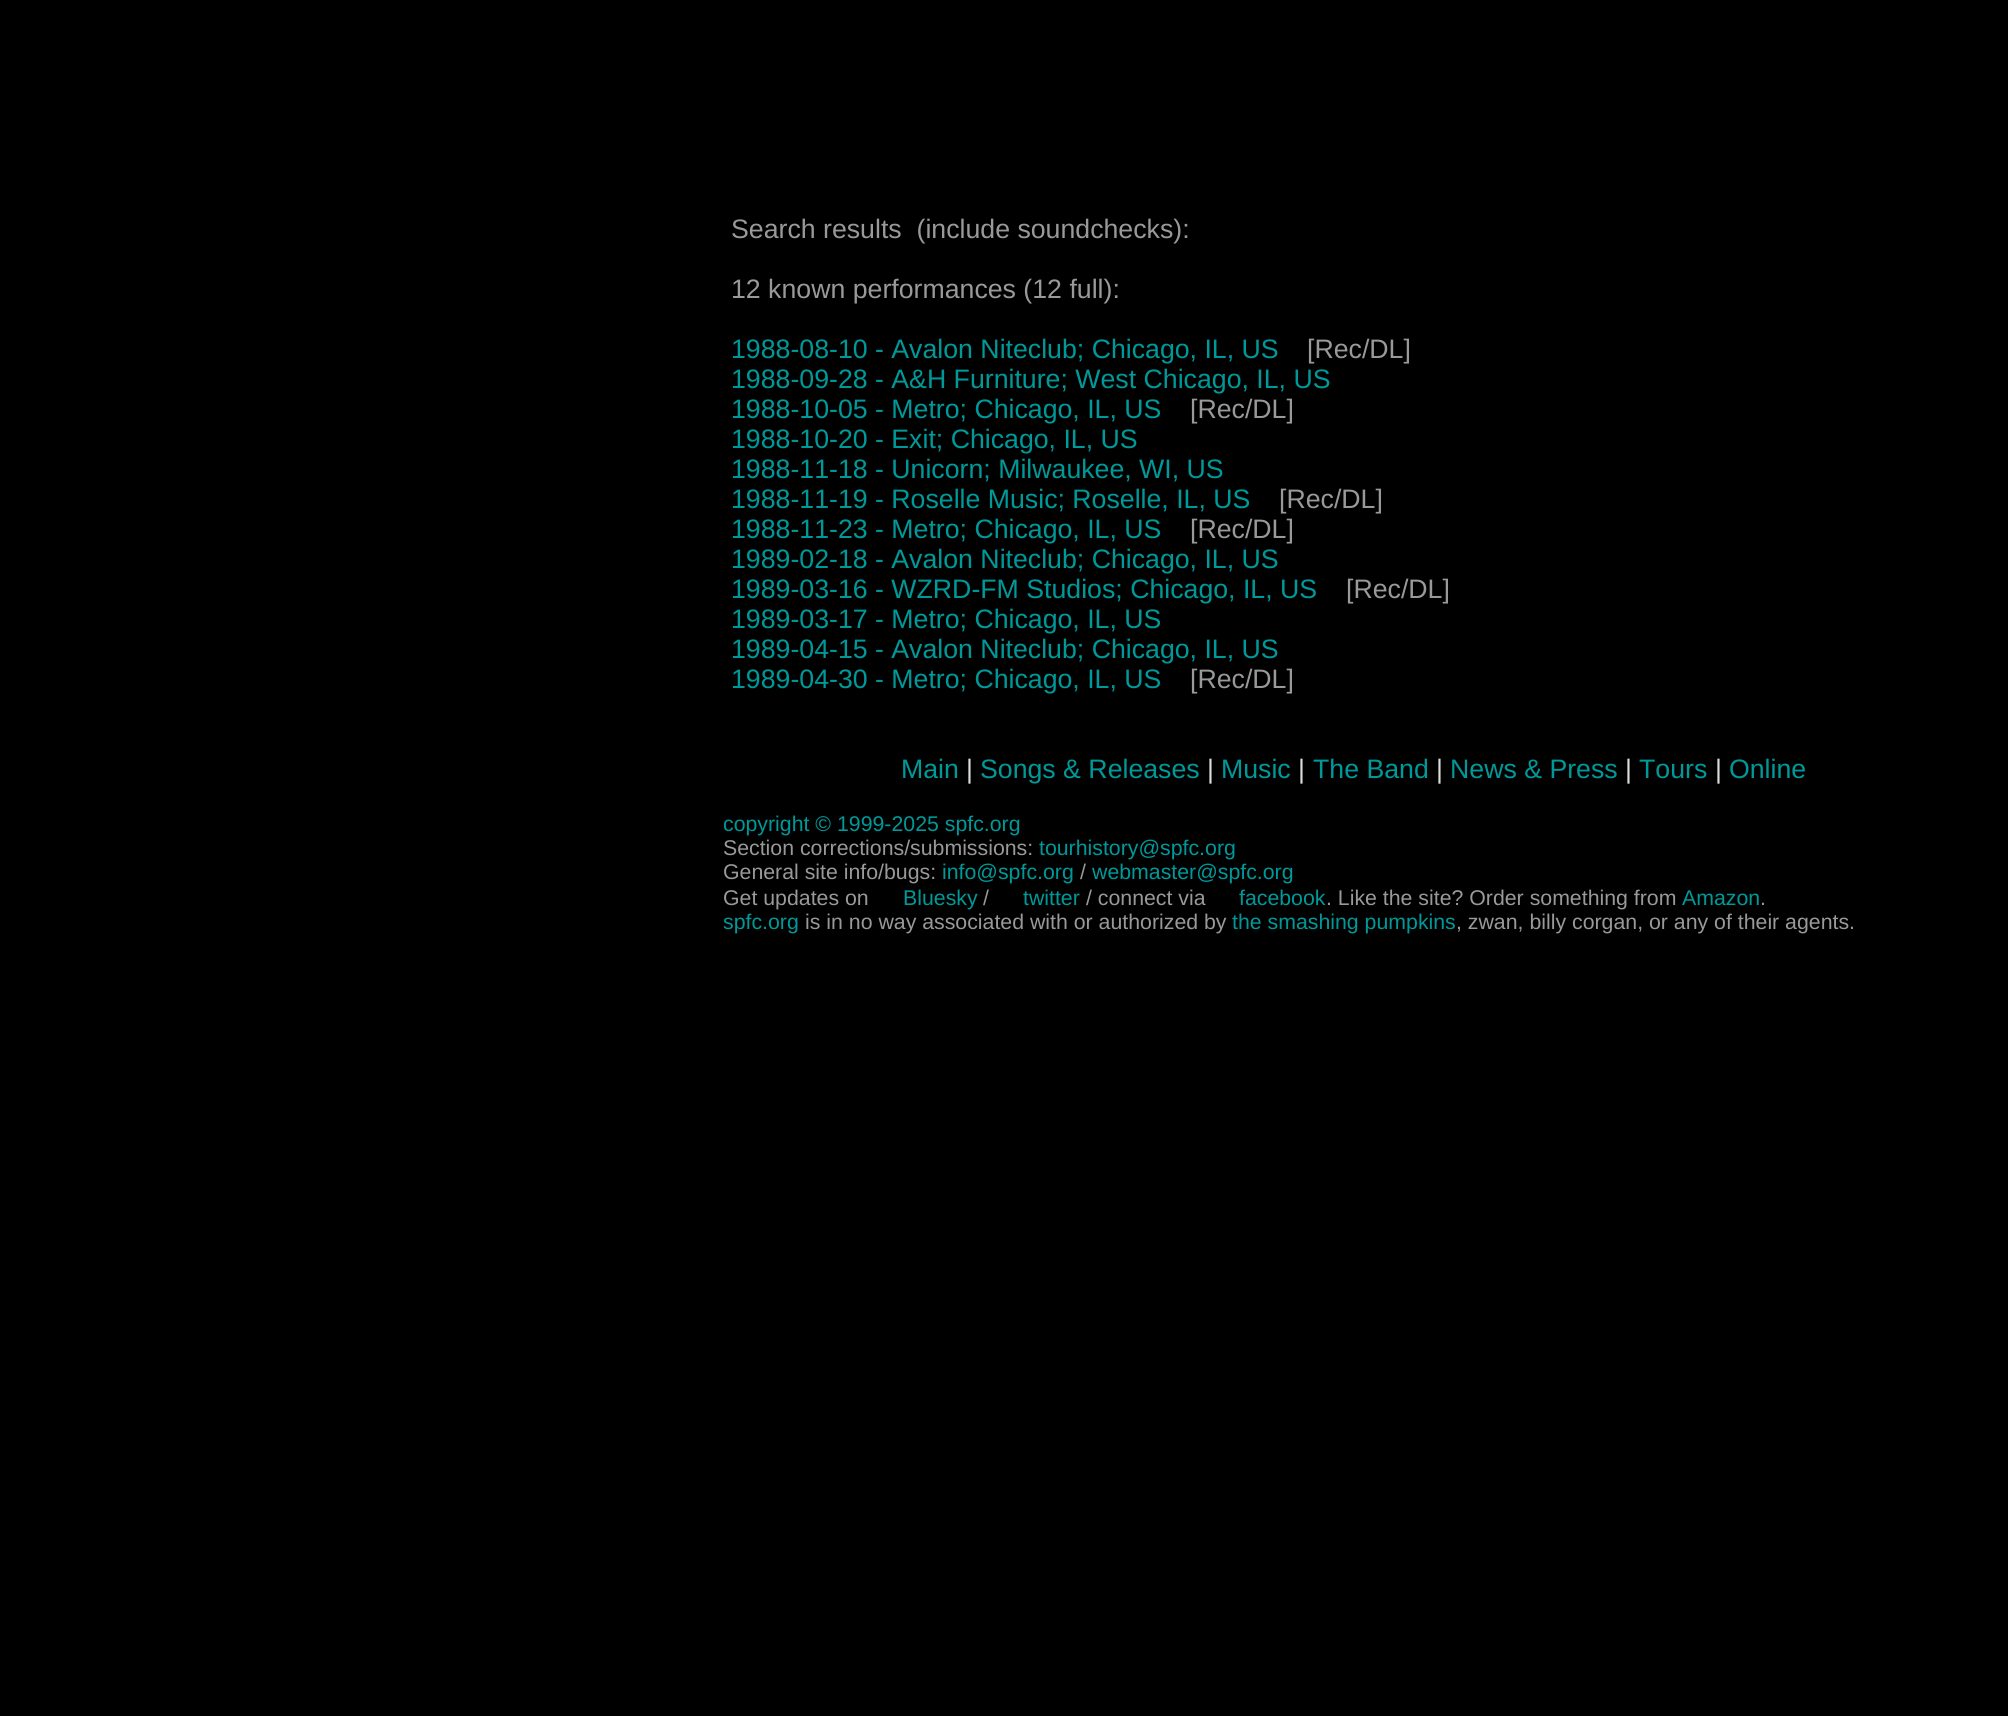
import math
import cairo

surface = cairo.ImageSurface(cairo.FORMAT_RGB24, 2008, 1716)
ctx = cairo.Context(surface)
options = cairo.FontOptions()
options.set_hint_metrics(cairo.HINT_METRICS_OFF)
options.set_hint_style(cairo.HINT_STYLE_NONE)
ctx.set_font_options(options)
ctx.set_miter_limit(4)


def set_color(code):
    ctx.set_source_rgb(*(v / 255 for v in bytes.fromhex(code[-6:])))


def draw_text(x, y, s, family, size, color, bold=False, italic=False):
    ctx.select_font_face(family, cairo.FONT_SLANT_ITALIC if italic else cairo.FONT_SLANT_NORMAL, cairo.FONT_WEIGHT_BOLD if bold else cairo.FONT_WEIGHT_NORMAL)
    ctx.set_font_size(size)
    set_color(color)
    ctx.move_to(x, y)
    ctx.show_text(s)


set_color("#000000")
ctx.paint()
draw_text(731, 238, "Search results  (include soundchecks):", "Liberation Sans", 26.7, "#999999")
draw_text(731, 298, "12 known performances (12 full):", "Liberation Sans", 26.7, "#999999")
draw_text(731, 358, "1988-08-10 - Avalon Niteclub; Chicago, IL, US", "Liberation Sans", 26.7, "#009999")
draw_text(1307, 358, "[Rec/DL]", "Liberation Sans", 26.7, "#999999")
draw_text(731, 388, "1988-09-28 - A&H Furniture; West Chicago, IL, US", "Liberation Sans", 26.7, "#009999")
draw_text(731, 418, "1988-10-05 - Metro; Chicago, IL, US", "Liberation Sans", 26.7, "#009999")
draw_text(1190, 418, "[Rec/DL]", "Liberation Sans", 26.7, "#999999")
draw_text(731, 448, "1988-10-20 - Exit; Chicago, IL, US", "Liberation Sans", 26.7, "#009999")
draw_text(731, 478, "1988-11-18 - Unicorn; Milwaukee, WI, US", "Liberation Sans", 26.7, "#009999")
draw_text(731, 508, "1988-11-19 - Roselle Music; Roselle, IL, US", "Liberation Sans", 26.7, "#009999")
draw_text(1279, 508, "[Rec/DL]", "Liberation Sans", 26.7, "#999999")
draw_text(731, 538, "1988-11-23 - Metro; Chicago, IL, US", "Liberation Sans", 26.7, "#009999")
draw_text(1190, 538, "[Rec/DL]", "Liberation Sans", 26.7, "#999999")
draw_text(731, 568, "1989-02-18 - Avalon Niteclub; Chicago, IL, US", "Liberation Sans", 26.7, "#009999")
draw_text(731, 598, "1989-03-16 - WZRD-FM Studios; Chicago, IL, US", "Liberation Sans", 26.7, "#009999")
draw_text(1346, 598, "[Rec/DL]", "Liberation Sans", 26.7, "#999999")
draw_text(731, 628, "1989-03-17 - Metro; Chicago, IL, US", "Liberation Sans", 26.7, "#009999")
draw_text(731, 658, "1989-04-15 - Avalon Niteclub; Chicago, IL, US", "Liberation Sans", 26.7, "#009999")
draw_text(731, 688, "1989-04-30 - Metro; Chicago, IL, US", "Liberation Sans", 26.7, "#009999")
draw_text(1190, 688, "[Rec/DL]", "Liberation Sans", 26.7, "#999999")
draw_text(901, 778, "Main", "Liberation Sans", 26.7, "#009999")
draw_text(966, 778, "|", "Liberation Sans", 26.7, "#dddddd")
draw_text(980, 778, "Songs & Releases", "Liberation Sans", 26.7, "#009999")
draw_text(1207, 778, "|", "Liberation Sans", 26.7, "#dddddd")
draw_text(1221, 778, "Music", "Liberation Sans", 26.7, "#009999")
draw_text(1298, 778, "|", "Liberation Sans", 26.7, "#dddddd")
draw_text(1313, 778, "The Band", "Liberation Sans", 26.7, "#009999")
draw_text(1436, 778, "|", "Liberation Sans", 26.7, "#dddddd")
draw_text(1450, 778, "News & Press", "Liberation Sans", 26.7, "#009999")
draw_text(1625, 778, "|", "Liberation Sans", 26.7, "#dddddd")
draw_text(1639, 778, "Tours", "Liberation Sans", 26.7, "#009999")
draw_text(1715, 778, "|", "Liberation Sans", 26.7, "#dddddd")
draw_text(1729, 778, "Online", "Liberation Sans", 26.7, "#009999")
draw_text(723, 831, "copyright © 1999-2025 spfc.org", "Liberation Sans", 21.3, "#009999")
draw_text(723, 855, "Section corrections/submissions:", "Liberation Sans", 21.3, "#999999")
draw_text(1039, 855, "tourhistory@spfc.org", "Liberation Sans", 21.3, "#009999")
draw_text(723, 879, "General site info/bugs:", "Liberation Sans", 21.3, "#999999")
draw_text(942, 879, "info@spfc.org", "Liberation Sans", 21.3, "#009999")
draw_text(1080, 879, "/", "Liberation Sans", 21.3, "#999999")
draw_text(1092, 879, "webmaster@spfc.org", "Liberation Sans", 21.3, "#009999")
draw_text(723, 905, "Get updates on", "Liberation Sans", 21.3, "#999999")
draw_text(903, 905, "Bluesky", "Liberation Sans", 21.3, "#009999")
draw_text(983, 905, "/", "Liberation Sans", 21.3, "#999999")
draw_text(1023, 905, "twitter", "Liberation Sans", 21.3, "#009999")
draw_text(1086, 905, "/ connect via", "Liberation Sans", 21.3, "#999999")
draw_text(1239, 905, "facebook", "Liberation Sans", 21.3, "#009999")
draw_text(1326, 905, ". Like the site? Order something from", "Liberation Sans", 21.3, "#999999")
draw_text(1682, 905, "Amazon", "Liberation Sans", 21.3, "#009999")
draw_text(1760, 905, ".", "Liberation Sans", 21.3, "#999999")
draw_text(723, 929, "spfc.org", "Liberation Sans", 21.3, "#009999")
draw_text(805, 929, "is in no way associated with or authorized by", "Liberation Sans", 21.3, "#999999")
draw_text(1232, 929, "the smashing pumpkins", "Liberation Sans", 21.3, "#009999")
draw_text(1456, 929, ", zwan, billy corgan, or any of their agents.", "Liberation Sans", 21.3, "#999999")
surface.write_to_png("output.png")
